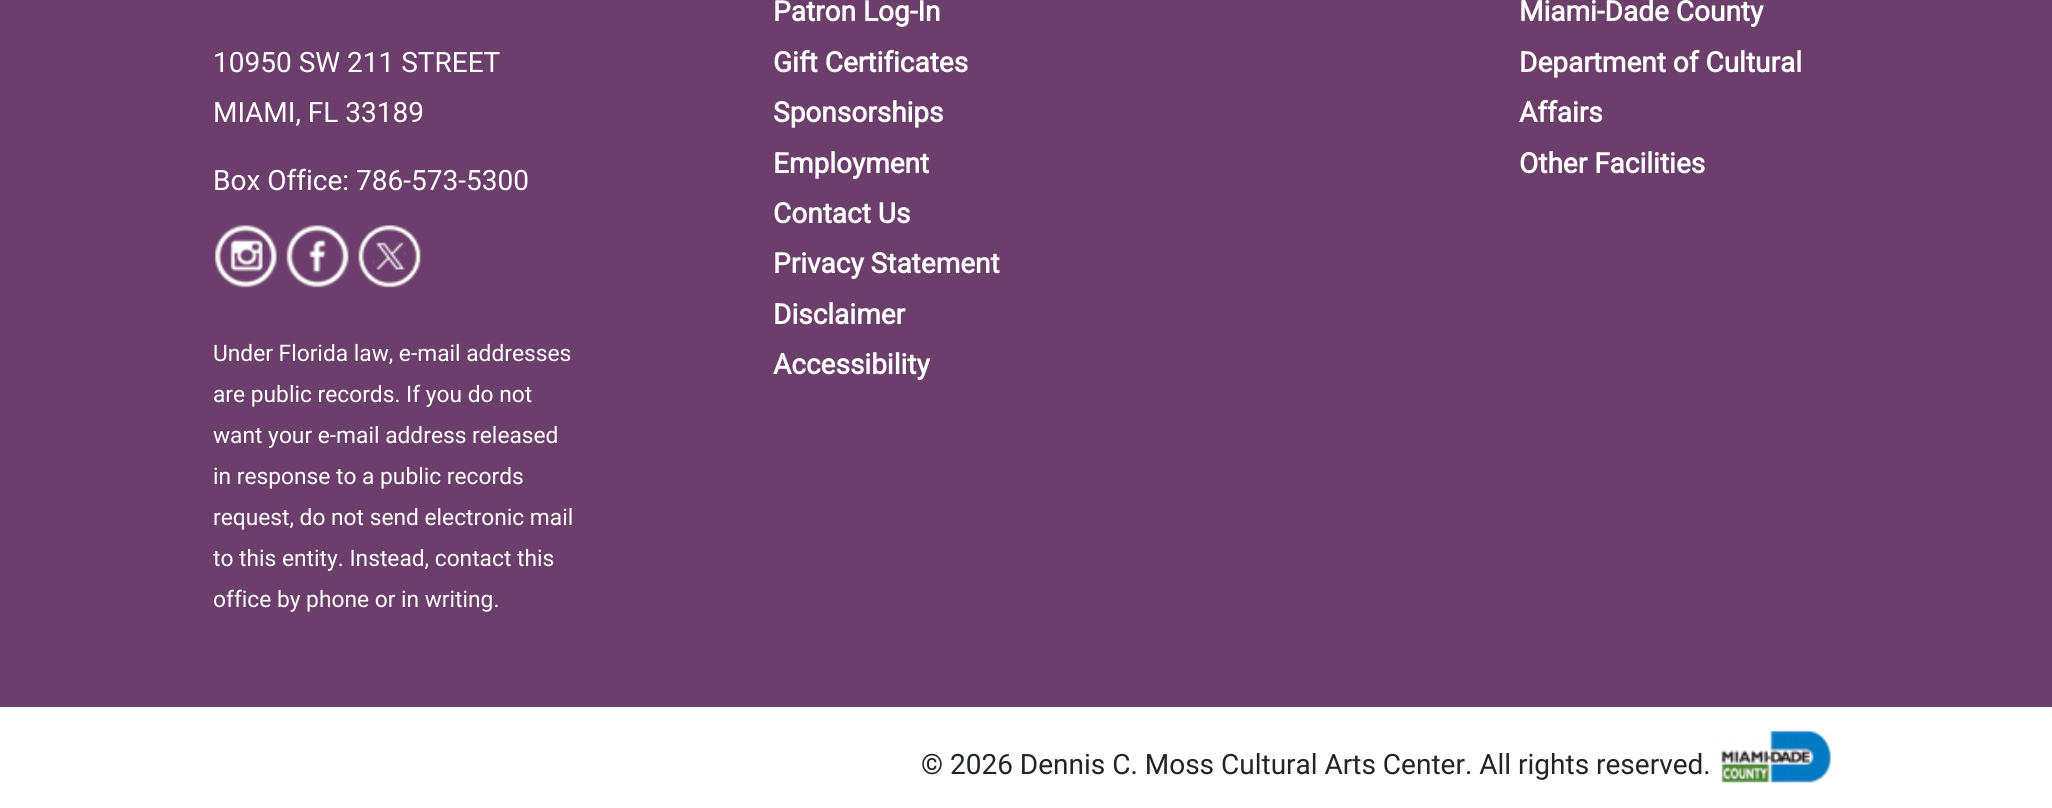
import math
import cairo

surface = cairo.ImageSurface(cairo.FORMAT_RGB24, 2052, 808)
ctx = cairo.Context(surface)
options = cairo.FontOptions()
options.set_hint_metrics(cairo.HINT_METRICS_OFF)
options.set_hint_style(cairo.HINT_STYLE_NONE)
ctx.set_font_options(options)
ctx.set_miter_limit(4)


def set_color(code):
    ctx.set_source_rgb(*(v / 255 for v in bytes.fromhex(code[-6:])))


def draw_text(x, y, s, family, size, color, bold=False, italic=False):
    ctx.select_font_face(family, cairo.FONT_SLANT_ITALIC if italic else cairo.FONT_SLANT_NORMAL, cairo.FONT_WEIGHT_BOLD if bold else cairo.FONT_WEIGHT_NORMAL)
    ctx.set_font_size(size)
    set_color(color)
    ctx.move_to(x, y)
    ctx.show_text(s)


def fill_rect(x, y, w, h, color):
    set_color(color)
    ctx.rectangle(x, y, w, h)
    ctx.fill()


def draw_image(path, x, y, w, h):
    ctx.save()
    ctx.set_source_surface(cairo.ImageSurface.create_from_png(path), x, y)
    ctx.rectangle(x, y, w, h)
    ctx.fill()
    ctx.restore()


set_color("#ffffff")
ctx.paint()
fill_rect(0, 0, 2052, 707, "#6c3e6b")
draw_text(213, 72, "10950 SW 211 STREET", "Roboto", 28, "#ffffff")
draw_text(213, 122, "MIAMI, FL 33189", "Roboto", 28, "#ffffff")
draw_text(213, 190, "Box Office: 786-573-5300", "Roboto", 28, "#ffffff")
draw_image("assets/img1.png", 214, 225, 63, 63)
draw_image("assets/img2.png", 286, 225, 63, 63)
draw_image("assets/img3.png", 358, 225, 63, 63)
draw_text(213, 361, "Under Florida law, e-mail addresses", "Roboto", 22.75, "#ffffff")
draw_text(213, 402, "are public records. If you do not", "Roboto", 22.75, "#ffffff")
draw_text(213, 443, "want your e-mail address released", "Roboto", 22.75, "#ffffff")
draw_text(213, 484, "in response to a public records", "Roboto", 22.75, "#ffffff")
draw_text(213, 525, "request, do not send electronic mail", "Roboto", 22.75, "#ffffff")
draw_text(213, 566, "to this entity. Instead, contact this", "Roboto", 22.75, "#ffffff")
draw_text(213, 607, "office by phone or in writing.", "Roboto", 22.75, "#ffffff")
draw_text(773, 21, "Patron Log-In", "Roboto", 28, "#ffffff", bold=True)
draw_text(773, 72, "Gift Certificates", "Roboto", 28, "#ffffff", bold=True)
draw_text(773, 122, "Sponsorships", "Roboto", 28, "#ffffff", bold=True)
draw_text(773, 173, "Employment", "Roboto", 28, "#ffffff", bold=True)
draw_text(773, 223, "Contact Us", "Roboto", 28, "#ffffff", bold=True)
draw_text(773, 273, "Privacy Statement", "Roboto", 28, "#ffffff", bold=True)
draw_text(773, 324, "Disclaimer", "Roboto", 28, "#ffffff", bold=True)
draw_text(773, 374, "Accessibility", "Roboto", 28, "#ffffff", bold=True)
draw_text(1519, 21, "Miami-Dade County", "Roboto", 28, "#ffffff", bold=True)
draw_text(1519, 72, "Department of Cultural", "Roboto", 28, "#ffffff", bold=True)
draw_text(1519, 122, "Affairs", "Roboto", 28, "#ffffff", bold=True)
draw_text(1519, 173, "Other Facilities", "Roboto", 28, "#ffffff", bold=True)
draw_text(921, 774, "© 2026 Dennis C. Moss Cultural Arts Center. All rights reserved.", "Roboto", 28, "#212529")
draw_image("assets/img4.png", 1713, 730, 119, 53)
surface.write_to_png("output.png")
